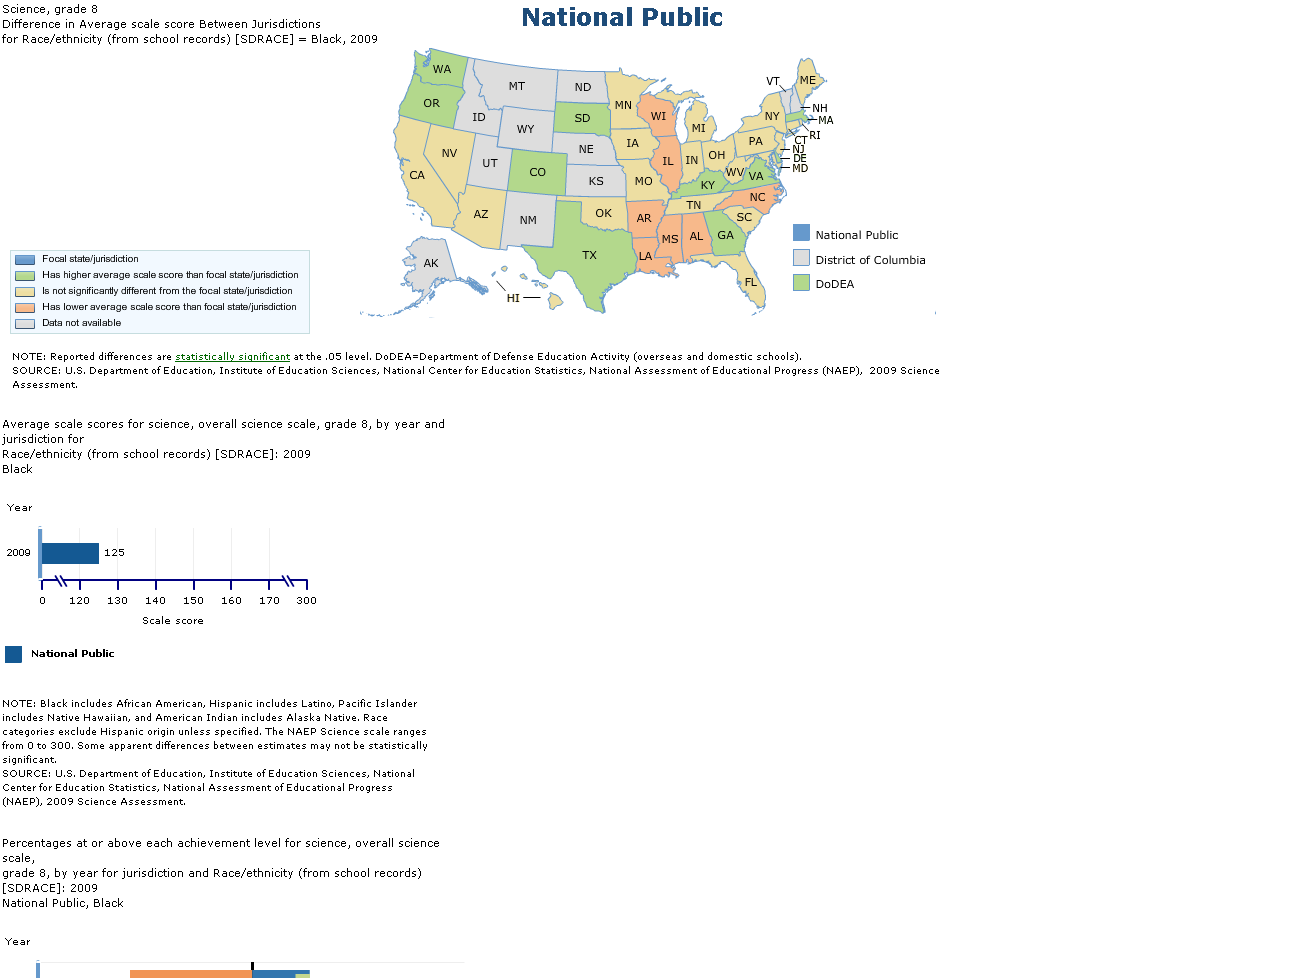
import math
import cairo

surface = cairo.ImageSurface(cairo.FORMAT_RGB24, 1296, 978)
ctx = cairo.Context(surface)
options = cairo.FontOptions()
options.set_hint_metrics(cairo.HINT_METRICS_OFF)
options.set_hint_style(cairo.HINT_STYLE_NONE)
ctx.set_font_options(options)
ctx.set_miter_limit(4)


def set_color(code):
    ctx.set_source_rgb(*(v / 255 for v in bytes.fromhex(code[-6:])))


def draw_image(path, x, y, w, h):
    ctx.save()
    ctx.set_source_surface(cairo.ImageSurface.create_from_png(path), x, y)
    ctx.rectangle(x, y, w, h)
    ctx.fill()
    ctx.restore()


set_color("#ffffff")
ctx.paint()
draw_image("assets/img1.png", 2, 4, 937, 974)
surface.write_to_png("output.png")
